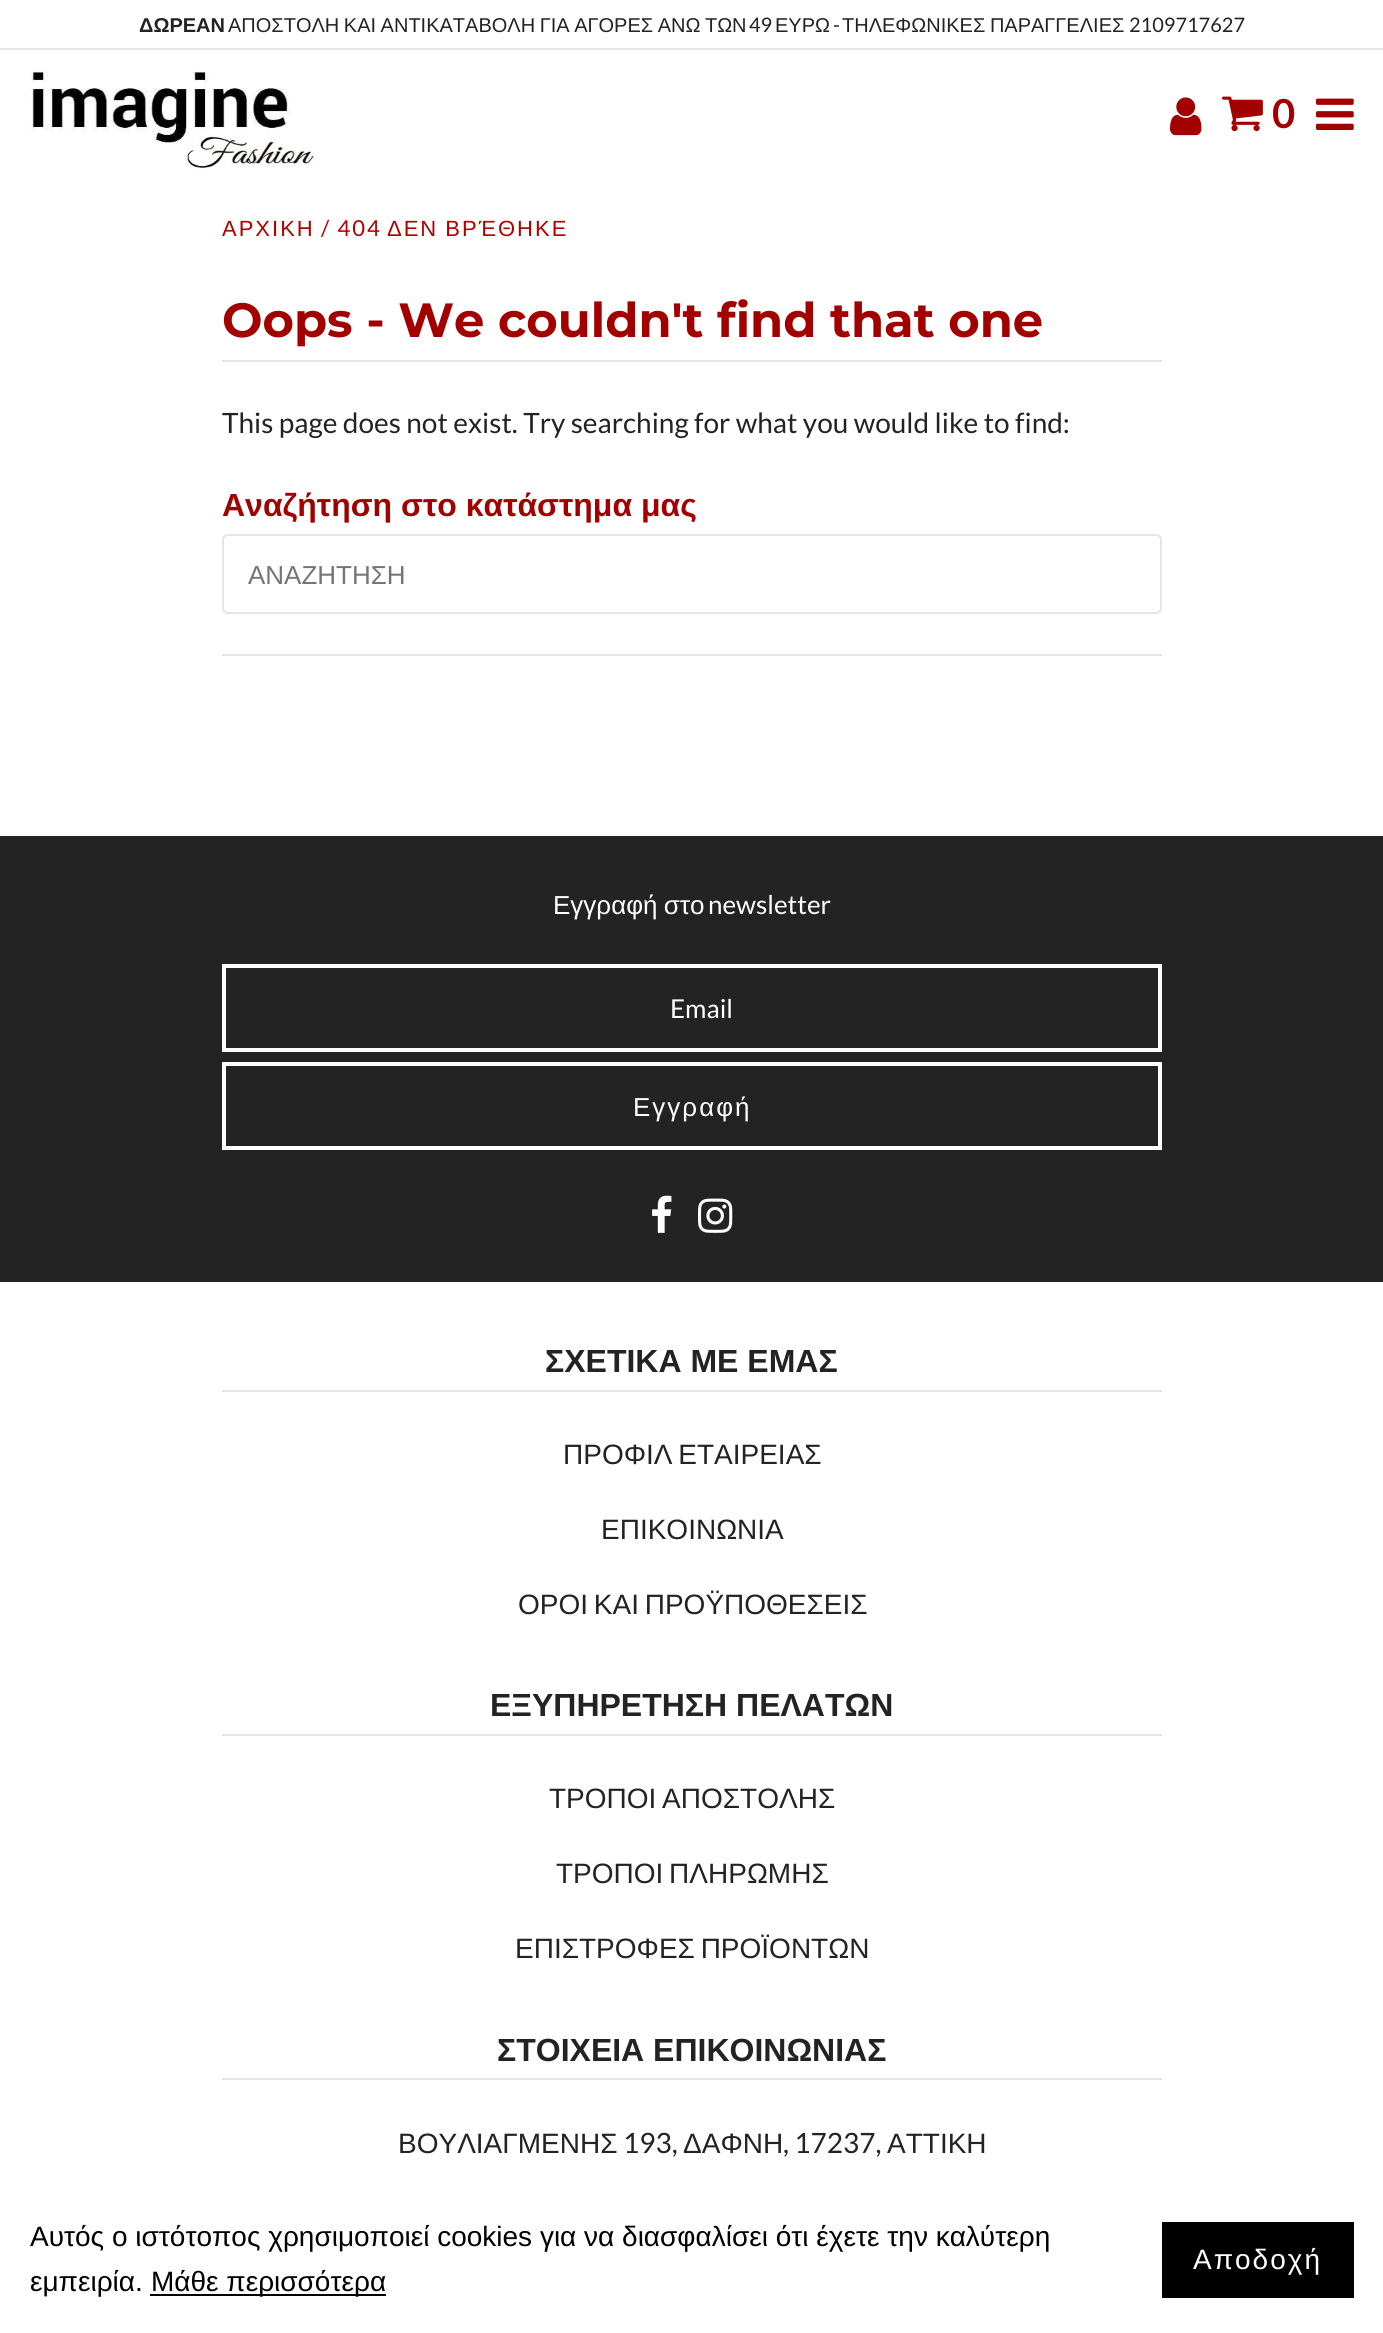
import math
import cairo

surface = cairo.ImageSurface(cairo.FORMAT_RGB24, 1383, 2333)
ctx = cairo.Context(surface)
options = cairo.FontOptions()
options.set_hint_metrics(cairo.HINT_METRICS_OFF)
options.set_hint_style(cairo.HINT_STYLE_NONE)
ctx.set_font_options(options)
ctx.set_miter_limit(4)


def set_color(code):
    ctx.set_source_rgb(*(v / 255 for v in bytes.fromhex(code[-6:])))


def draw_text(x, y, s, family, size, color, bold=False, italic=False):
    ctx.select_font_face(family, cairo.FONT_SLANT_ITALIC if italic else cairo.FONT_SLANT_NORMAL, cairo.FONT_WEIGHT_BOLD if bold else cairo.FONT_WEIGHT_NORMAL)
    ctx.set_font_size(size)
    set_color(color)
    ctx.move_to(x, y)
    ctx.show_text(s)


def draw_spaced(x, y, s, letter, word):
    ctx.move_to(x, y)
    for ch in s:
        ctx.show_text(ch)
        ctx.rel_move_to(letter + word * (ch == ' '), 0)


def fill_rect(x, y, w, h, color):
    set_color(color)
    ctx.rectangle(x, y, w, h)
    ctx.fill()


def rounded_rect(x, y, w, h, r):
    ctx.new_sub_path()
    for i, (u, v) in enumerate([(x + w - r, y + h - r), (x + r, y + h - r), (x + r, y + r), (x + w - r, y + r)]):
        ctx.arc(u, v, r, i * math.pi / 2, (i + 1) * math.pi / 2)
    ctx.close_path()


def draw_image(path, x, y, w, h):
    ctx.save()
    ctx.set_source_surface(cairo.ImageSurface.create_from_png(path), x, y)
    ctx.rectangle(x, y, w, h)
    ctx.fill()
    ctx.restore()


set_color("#ffffff")
ctx.paint()
fill_rect(0, 48, 1383, 2, "#e5e5e5")
draw_text(139, 32, "ΔΩΡΕΑΝ", "Liberation Sans", 20, "#232323", bold=True)
ctx.select_font_face("Liberation Sans")
draw_spaced(228, 32, "ΑΠΟΣΤΟΛΗ ΚΑΙ ΑΝΤΙΚΑΤΑΒΟΛΗ ΓΙΑ ΑΓΟΡΕΣ ΑΝΩ ΤΩΝ", 0, -1)
draw_text(749, 32, "49", "Lato", 20, "#232323")
draw_text(775, 32, "ΕΥΡΩ", "Liberation Sans", 20, "#232323")
draw_text(833, 32, "-", "Lato", 20, "#232323")
ctx.select_font_face("Liberation Sans")
draw_spaced(842, 32, "ΤΗΛΕΦΩΝΙΚΕΣ ΠΑΡΑΓΓΕΛΙΕΣ", 0, -1)
draw_text(1129, 32, "2109717627", "Lato", 20, "#232323")
draw_image("assets/img1.png", 31, 71, 283, 99)
draw_image("assets/img2.png", 1170, 97, 32, 39)
draw_image("assets/img3.png", 1222, 96, 41, 36)
draw_text(1272, 128, "0", "Lato", 40, "#a30000", bold=True)
draw_image("assets/img4.png", 1316, 98, 38, 32)
ctx.select_font_face("Liberation Sans")
ctx.set_font_size(22)
set_color("#b20000")
draw_spaced(222, 236, "ΑΡΧΙΚΗ", 2, 0)
ctx.select_font_face("Lato")
draw_spaced(321, 236, "/ 404", 2, 0)
ctx.select_font_face("Liberation Sans")
draw_spaced(387, 236, "ΔΕΝ ΒΡΈΘΗΚΕ", 2, -1)
fill_rect(222, 360, 940, 2, "#e5e5e5")
draw_text(222, 337, "Oops - We couldn't find that one", "Montserrat", 48, "#a30000", bold=True)
draw_text(222, 433, "This page does not exist. Try searching for what you would like to find:", "Lato", 28, "#232323")
fill_rect(222, 654, 940, 2, "#e5e5e5")
draw_text(222, 516, "Αναζήτηση στο κατάστημα μας", "Liberation Sans", 32, "#a30000", bold=True)
rounded_rect(223, 535, 938, 78, 5)
set_color("#e5e5e5")
ctx.stroke()
draw_text(248, 584, "ΑΝΑΖΗΤΗΣΗ", "Liberation Sans", 26, "#757575")
fill_rect(0, 836, 1383, 446, "#232323")
set_color("#ffffff")
draw_spaced(553, 914, "Εγγραφή στο", 0, -1)
draw_text(708, 914, "newsletter", "Lato", 26, "#ffffff")
ctx.rectangle(224, 966, 936, 84)
ctx.set_line_width(4)
ctx.stroke()
draw_text(670, 1018, "Email", "Lato", 26, "#ffffff")
ctx.rectangle(224, 1064, 936, 84)
ctx.stroke()
ctx.select_font_face("Liberation Sans")
draw_spaced(633, 1116, "Εγγραφή", 2, 0)
draw_image("assets/img5.png", 652, 1195, 20, 38)
draw_image("assets/img6.png", 698, 1198, 35, 35)
fill_rect(222, 1390, 940, 2, "#e5e5e5")
draw_text(545, 1372, "ΣΧΕΤΙΚΑ ΜΕ ΕΜΑΣ", "Liberation Sans", 32, "#232323", bold=True)
ctx.select_font_face("Liberation Sans")
ctx.set_font_size(28)
draw_spaced(563, 1464, "ΠΡΟΦΙΛ ΕΤΑΙΡΕΙΑΣ", 0, -2)
draw_text(601, 1539, "ΕΠΙΚΟΙΝΩΝΙΑ", "Liberation Sans", 28, "#232323")
draw_spaced(518, 1614, "ΟΡΟΙ ΚΑΙ ΠΡΟΫΠΟΘΕΣΕΙΣ", 0, -2)
fill_rect(222, 1734, 940, 2, "#e5e5e5")
draw_text(490, 1716, "ΕΞΥΠΗΡΕΤΗΣΗ ΠΕΛΑΤΩΝ", "Liberation Sans", 32, "#232323", bold=True)
ctx.select_font_face("Liberation Sans")
ctx.set_font_size(28)
draw_spaced(549, 1808, "ΤΡΟΠΟΙ ΑΠΟΣΤΟΛΗΣ", 0, -2)
draw_spaced(556, 1883, "ΤΡΟΠΟΙ ΠΛΗΡΩΜΗΣ", 0, -2)
draw_spaced(515, 1958, "ΕΠΙΣΤΡΟΦΕΣ ΠΡΟΪΟΝΤΩΝ", 0, -2)
fill_rect(222, 2078, 940, 2, "#e5e5e5")
draw_text(497, 2061, "ΣΤΟΙΧΕΙΑ ΕΠΙΚΟΙΝΩΝΙΑΣ", "Liberation Sans", 32, "#232323", bold=True)
draw_text(398, 2153, "ΒΟΥΛΙΑΓΜΕΝΗΣ", "Liberation Sans", 28, "#232323")
draw_text(623, 2153, "193,", "Lato", 28, "#232323")
draw_text(683, 2153, "ΔΑΦΝΗ", "Liberation Sans", 28, "#232323")
draw_text(783, 2153, ", 17237,", "Lato", 28, "#232323")
draw_text(887, 2153, "ΑΤΤΙΚΗ", "Liberation Sans", 28, "#232323")
draw_text(30, 2246, "Αυτός ο ιστότοπος χρησιμοποιεί cookies για να διασφαλίσει ότι έχετε την καλύτερη", "Liberation Sans", 28, "#000000")
draw_text(30, 2291, "εμπειρία.", "Liberation Sans", 28, "#000000")
fill_rect(150, 2294, 236, 2, "#000000")
draw_text(151, 2291, "Μάθε περισσότερα", "Liberation Sans", 28, "#000000")
fill_rect(1162, 2222, 192, 76, "#000000")
set_color("#ffffff")
draw_spaced(1193, 2269, "Αποδοχή", 2, 0)
surface.write_to_png("output.png")
